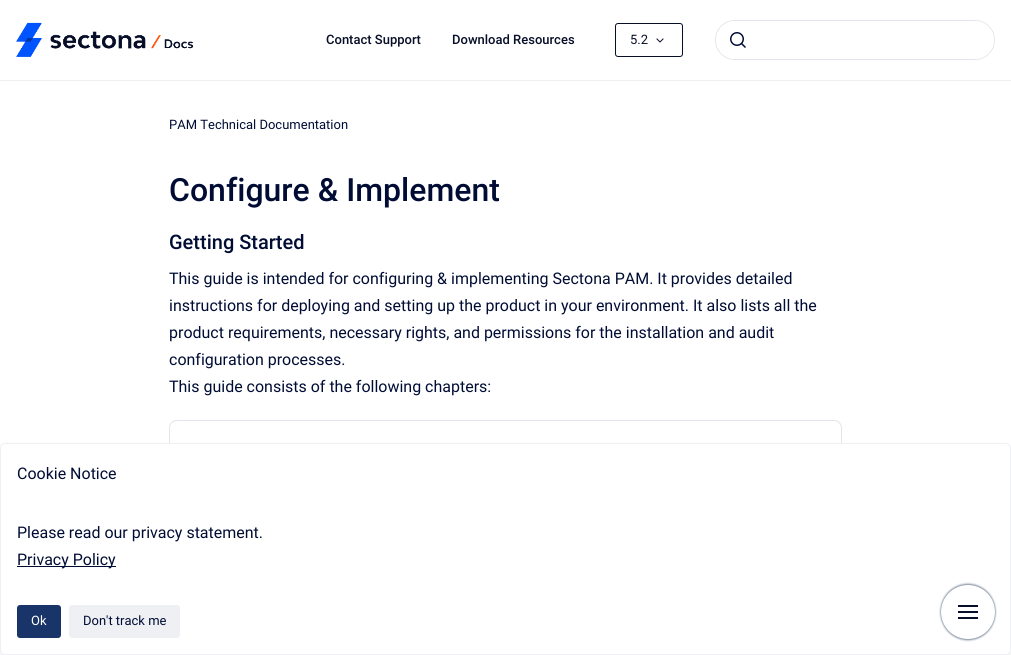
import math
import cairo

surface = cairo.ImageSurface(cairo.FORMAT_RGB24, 1011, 655)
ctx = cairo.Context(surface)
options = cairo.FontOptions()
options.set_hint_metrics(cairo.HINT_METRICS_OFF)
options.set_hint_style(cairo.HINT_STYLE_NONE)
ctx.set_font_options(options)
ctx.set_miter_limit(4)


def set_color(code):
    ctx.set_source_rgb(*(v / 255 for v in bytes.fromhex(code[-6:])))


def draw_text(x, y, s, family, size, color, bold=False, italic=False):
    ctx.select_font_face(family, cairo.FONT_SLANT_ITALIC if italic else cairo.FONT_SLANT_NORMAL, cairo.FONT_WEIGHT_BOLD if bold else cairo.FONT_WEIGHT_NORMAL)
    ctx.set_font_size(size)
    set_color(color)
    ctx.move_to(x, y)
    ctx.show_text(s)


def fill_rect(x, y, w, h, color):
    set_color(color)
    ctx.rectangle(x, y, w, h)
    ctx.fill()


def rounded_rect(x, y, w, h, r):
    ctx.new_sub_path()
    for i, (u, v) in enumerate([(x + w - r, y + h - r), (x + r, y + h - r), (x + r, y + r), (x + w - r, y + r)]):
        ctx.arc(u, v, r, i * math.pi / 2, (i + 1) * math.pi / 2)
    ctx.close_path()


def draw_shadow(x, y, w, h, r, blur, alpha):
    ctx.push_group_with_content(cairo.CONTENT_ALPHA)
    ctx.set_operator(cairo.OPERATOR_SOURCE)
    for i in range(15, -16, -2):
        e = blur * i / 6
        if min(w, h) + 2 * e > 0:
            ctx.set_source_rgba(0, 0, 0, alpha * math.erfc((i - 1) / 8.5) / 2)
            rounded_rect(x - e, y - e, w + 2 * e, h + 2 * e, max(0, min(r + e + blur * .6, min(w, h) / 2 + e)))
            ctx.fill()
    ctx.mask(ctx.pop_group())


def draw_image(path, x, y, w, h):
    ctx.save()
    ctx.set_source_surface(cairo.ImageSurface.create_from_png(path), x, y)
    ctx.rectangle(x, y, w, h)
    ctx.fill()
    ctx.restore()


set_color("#ffffff")
ctx.paint()
fill_rect(0, 80, 1011, 1, "#eff0f4")
draw_image("assets/img1.png", 16, 22, 178, 35)
draw_text(326, 44, "Contact Support", "Roboto Medium", 13, "#070e28")
draw_text(452, 44, "Download Resources", "Roboto Medium", 13, "#070e28")
rounded_rect(615.5, 23.5, 67, 33, 2.5)
ctx.set_line_width(1)
ctx.stroke()
draw_text(630, 44, "5.2", "Roboto", 13, "#070e28")
ctx.new_path()
ctx.move_to(663, 39)
ctx.line_to(660, 42)
ctx.line_to(657, 39)
ctx.set_line_cap(cairo.LINE_CAP_SQUARE)
ctx.stroke()
rounded_rect(715.5, 20.5, 279, 39, 19.5)
set_color("#e2e5eb")
ctx.set_line_cap(cairo.LINE_CAP_BUTT)
ctx.stroke()
set_color("#ffffff")
rounded_rect(716, 21, 278, 38, 19)
ctx.fill()
draw_image("assets/img2.png", 730, 32, 16, 16)
draw_text(169, 129, "PAM Technical Documentation", "Roboto", 13, "#000c34")
draw_text(169, 201, "Configure & Implement", "Roboto Medium", 32, "#000c34")
draw_text(169, 249, "Getting Started", "Roboto Medium", 20, "#000c34")
draw_text(169, 284, "This guide is intended for configuring & implementing Sectona PAM. It provides detailed", "Roboto", 16, "#000c34")
draw_text(169, 311, "instructions for deploying and setting up the product in your environment. It also lists all the", "Roboto", 16, "#000c34")
draw_text(169, 338, "product requirements, necessary rights, and permissions for the installation and audit", "Roboto", 16, "#000c34")
draw_text(169, 365, "configuration processes.", "Roboto", 16, "#000c34")
draw_text(169, 392, "This guide consists of the following chapters:", "Roboto", 16, "#000c34")
rounded_rect(169.5, 420.5, 672, 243, 7.5)
set_color("#e2e5eb")
ctx.stroke()
set_color("#000000")
draw_shadow(3, 456, 1005, 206, 2, 7.5, 0.1)
set_color("#ffffff")
rounded_rect(0.5, 443.5, 1010, 211, 4.5)
ctx.fill_preserve()
set_color("#eff0f4")
ctx.stroke()
draw_text(17, 479, "Cookie Notice", "Roboto", 16, "#000c34")
draw_text(17, 538, "Please read our privacy statement.", "Roboto", 16, "#000c34")
fill_rect(17, 566, 99, 1, "#000c34")
draw_text(17, 565, "Privacy Policy", "Roboto", 16, "#000c34")
set_color("#193468")
rounded_rect(17, 605, 44, 33, 3)
ctx.fill()
draw_text(31, 625, "Ok", "Roboto", 13, "#ffffff")
set_color("#eff0f4")
rounded_rect(69, 605, 111, 33, 3)
ctx.fill()
draw_text(83, 625, "Don't track me", "Roboto", 13, "#000c34")
set_color("#7a869a")
draw_shadow(941, 584, 54, 54, 27, 1, 1)
draw_shadow(941, 586, 54, 54, 27, 1, 1)
set_color("#ffffff")
ctx.arc(968, 612, 27, 0, 2 * math.pi)
ctx.fill()
fill_rect(958, 605, 20, 2, "#070e28")
fill_rect(958, 611, 20, 2, "#070e28")
fill_rect(958, 617, 20, 2, "#070e28")
surface.write_to_png("output.png")
